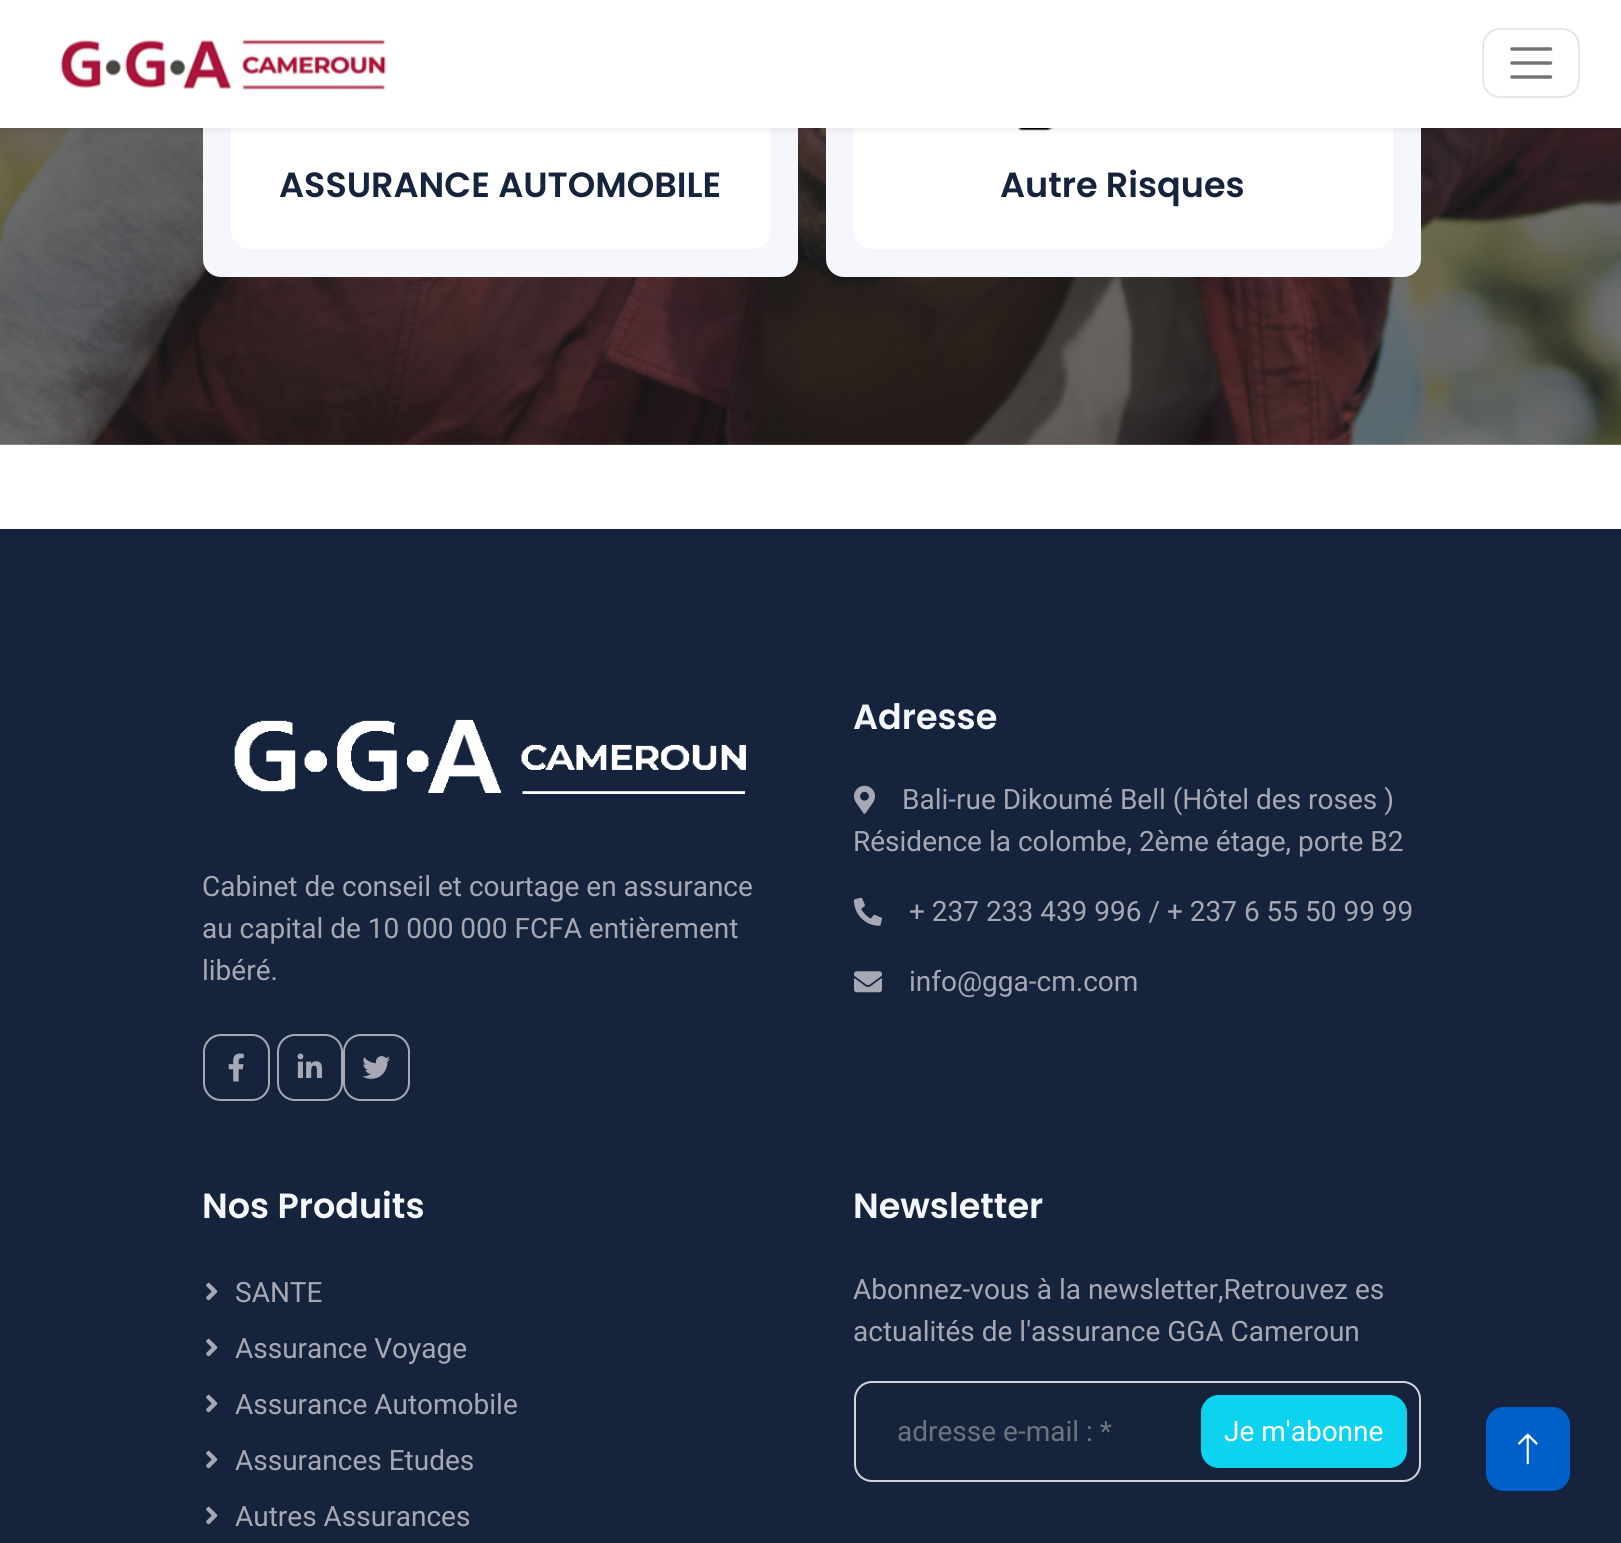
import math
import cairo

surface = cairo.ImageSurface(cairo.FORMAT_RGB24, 1621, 1543)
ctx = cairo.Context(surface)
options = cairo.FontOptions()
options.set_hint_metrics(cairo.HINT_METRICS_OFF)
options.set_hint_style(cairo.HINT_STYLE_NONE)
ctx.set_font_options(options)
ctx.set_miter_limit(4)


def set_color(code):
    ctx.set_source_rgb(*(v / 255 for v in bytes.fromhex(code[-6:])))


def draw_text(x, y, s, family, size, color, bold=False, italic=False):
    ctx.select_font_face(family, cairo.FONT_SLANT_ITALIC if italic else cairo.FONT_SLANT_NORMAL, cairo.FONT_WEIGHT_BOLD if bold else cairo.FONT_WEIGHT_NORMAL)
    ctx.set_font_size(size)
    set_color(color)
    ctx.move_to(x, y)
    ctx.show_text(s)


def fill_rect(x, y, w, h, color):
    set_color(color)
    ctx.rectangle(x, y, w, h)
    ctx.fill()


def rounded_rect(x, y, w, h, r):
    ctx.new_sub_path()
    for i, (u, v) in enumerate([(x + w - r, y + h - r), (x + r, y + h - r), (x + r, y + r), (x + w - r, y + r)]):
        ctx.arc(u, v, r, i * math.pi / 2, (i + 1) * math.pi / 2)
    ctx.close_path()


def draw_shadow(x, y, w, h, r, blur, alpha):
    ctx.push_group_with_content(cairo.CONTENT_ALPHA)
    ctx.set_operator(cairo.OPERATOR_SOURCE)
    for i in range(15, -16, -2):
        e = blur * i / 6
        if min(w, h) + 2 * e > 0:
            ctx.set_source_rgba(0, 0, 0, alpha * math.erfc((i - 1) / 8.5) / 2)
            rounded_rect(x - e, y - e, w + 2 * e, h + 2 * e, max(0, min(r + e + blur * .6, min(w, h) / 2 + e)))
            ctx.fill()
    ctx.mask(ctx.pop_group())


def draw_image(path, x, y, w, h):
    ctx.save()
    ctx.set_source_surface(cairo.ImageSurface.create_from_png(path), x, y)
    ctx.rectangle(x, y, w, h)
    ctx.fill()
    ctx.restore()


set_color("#ffffff")
ctx.paint()
draw_image("assets/img2.png", 0, 128, 1621, 317)
set_color("#f6f7fc")
rounded_rect(203, -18, 595, 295, 18)
ctx.fill()
set_color("#ffffff")
rounded_rect(231, -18, 539, 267, 18)
ctx.fill()
set_color("#f6f7fc")
rounded_rect(826, -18, 595, 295, 18)
ctx.fill()
set_color("#ffffff")
rounded_rect(854, -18, 539, 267, 18)
ctx.fill()
draw_image("assets/img3.png", 1018, 128, 36, 3)
set_color("#000000")
draw_shadow(0, 4, 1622, 127, 0, 3.5, 0.07)
fill_rect(0, 0, 1621, 128, "#ffffff")
draw_image("assets/img1.png", 60, 39, 327, 52)
rounded_rect(1483, 29, 96, 68, 17)
set_color("#e6e6e6")
ctx.stroke()
ctx.new_path()
ctx.move_to(1512, 49)
ctx.line_to(1550.5, 49)
ctx.move_to(1512, 63)
ctx.line_to(1550.5, 63)
ctx.move_to(1512, 77)
ctx.line_to(1550.5, 77)
set_color("#737373")
ctx.set_line_width(3.5)
ctx.set_line_cap(cairo.LINE_CAP_ROUND)
ctx.stroke()
draw_text(279, 197, "ASSURANCE AUTOMOBILE", "Poppins SemiBold", 35, "#15233c")
draw_text(1000, 197, "Autre Risques", "Poppins SemiBold", 35, "#15233c")
fill_rect(0, 529, 1621, 1014, "#15233c")
draw_image("assets/img4.png", 234, 719, 512, 75)
draw_text(202, 896, "Cabinet de conseil et courtage en assurance", "Roboto", 28, "#a7a8b4")
draw_text(202, 938, "au capital de 10 000 000 FCFA entièrement", "Roboto", 28, "#a7a8b4")
draw_text(202, 980, "libéré.", "Roboto", 28, "#a7a8b4")
rounded_rect(204, 1035, 65, 65, 17)
ctx.set_line_width(2)
ctx.set_line_cap(cairo.LINE_CAP_BUTT)
ctx.stroke()
draw_image("assets/img5.png", 228, 1053, 16, 29)
rounded_rect(278, 1035, 64, 65, 17)
ctx.stroke()
draw_image("assets/img6.png", 297, 1053, 25, 25)
rounded_rect(344, 1035, 65, 65, 17)
ctx.stroke()
draw_image("assets/img7.png", 362, 1056, 28, 23)
draw_text(853, 729, "Adresse", "Poppins SemiBold", 35, "#f6f7fc")
draw_image("assets/img8.png", 854, 785, 21, 29)
draw_text(902, 809, "Bali-rue Dikoumé Bell (Hôtel des roses )", "Roboto", 28, "#a7a8b4")
draw_text(853, 851, "Résidence la colombe, 2ème étage, porte B2", "Roboto", 28, "#a7a8b4")
draw_image("assets/img9.png", 854, 897, 28, 29)
draw_text(909, 921, "+ 237 233 439 996 / + 237 6 55 50 99 99", "Roboto", 28, "#a7a8b4")
draw_image("assets/img10.png", 854, 971, 28, 22)
draw_text(909, 991, "info@gga-cm.com", "Roboto", 28, "#a7a8b4")
draw_text(202, 1218, "Nos Produits", "Poppins SemiBold", 35, "#f6f7fc")
draw_image("assets/img11.png", 206, 1282, 12, 19)
draw_text(235, 1302, "SANTE", "Roboto", 28, "#a7a8b4")
draw_image("assets/img11.png", 206, 1338, 12, 19)
draw_text(235, 1358, "Assurance Voyage", "Roboto", 28, "#a7a8b4")
draw_image("assets/img11.png", 206, 1394, 12, 19)
draw_text(235, 1414, "Assurance Automobile", "Roboto", 28, "#a7a8b4")
draw_image("assets/img11.png", 206, 1450, 12, 19)
draw_text(235, 1470, "Assurances Etudes", "Roboto", 28, "#a7a8b4")
draw_image("assets/img11.png", 206, 1506, 12, 19)
draw_text(235, 1526, "Autres Assurances", "Roboto", 28, "#a7a8b4")
draw_text(853, 1218, "Newsletter", "Poppins SemiBold", 35, "#f6f7fc")
draw_text(853, 1299, "Abonnez-vous à la newsletter,Retrouvez es", "Roboto", 28, "#a7a8b4")
draw_text(853, 1341, "actualités de l'assurance GGA Cameroun", "Roboto", 28, "#a7a8b4")
rounded_rect(855, 1382, 565, 99, 17)
set_color("#ced4da")
ctx.stroke()
draw_text(897, 1441, "adresse e-mail : *", "Roboto", 28, "#6c757d")
set_color("#0dd3f1")
rounded_rect(1202, 1396, 204, 71, 17)
ctx.fill_preserve()
ctx.stroke()
draw_text(1224, 1441, "Je m'abonne", "Roboto", 28, "#ffffff")
set_color("#015fc9")
rounded_rect(1487, 1408, 82, 82, 17)
ctx.fill_preserve()
ctx.stroke()
draw_image("assets/img12.png", 1518, 1433, 20, 32)
surface.write_to_png("output.png")
